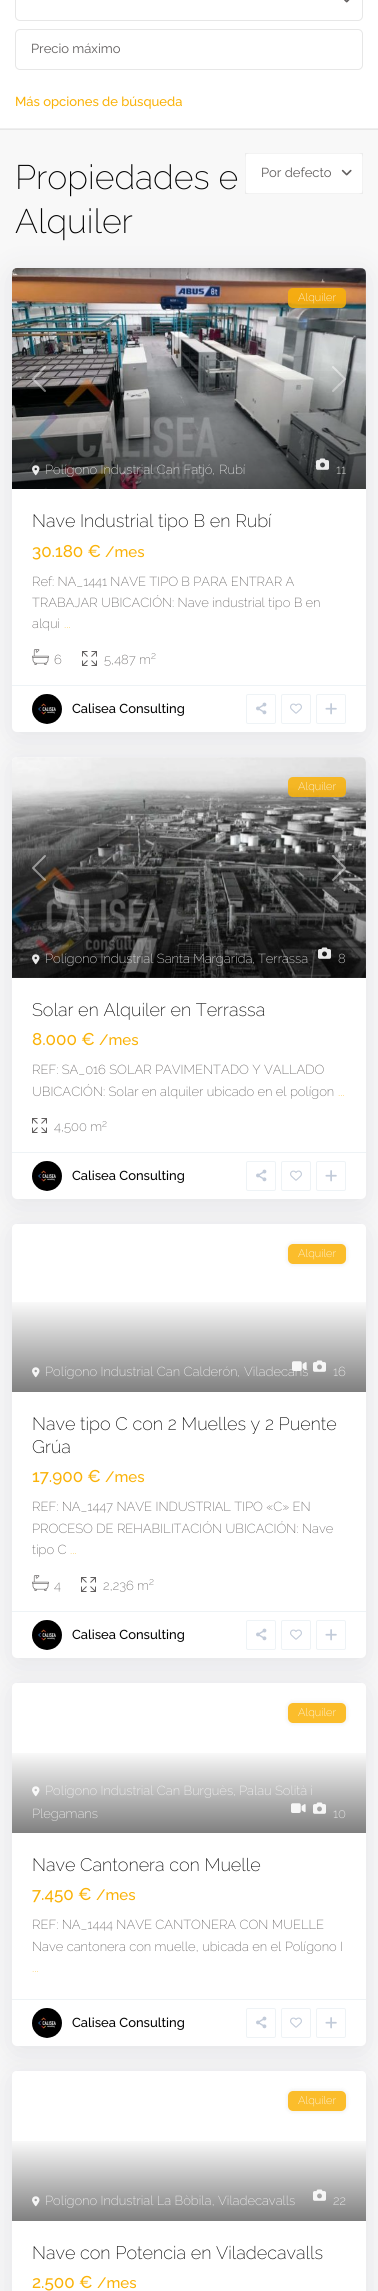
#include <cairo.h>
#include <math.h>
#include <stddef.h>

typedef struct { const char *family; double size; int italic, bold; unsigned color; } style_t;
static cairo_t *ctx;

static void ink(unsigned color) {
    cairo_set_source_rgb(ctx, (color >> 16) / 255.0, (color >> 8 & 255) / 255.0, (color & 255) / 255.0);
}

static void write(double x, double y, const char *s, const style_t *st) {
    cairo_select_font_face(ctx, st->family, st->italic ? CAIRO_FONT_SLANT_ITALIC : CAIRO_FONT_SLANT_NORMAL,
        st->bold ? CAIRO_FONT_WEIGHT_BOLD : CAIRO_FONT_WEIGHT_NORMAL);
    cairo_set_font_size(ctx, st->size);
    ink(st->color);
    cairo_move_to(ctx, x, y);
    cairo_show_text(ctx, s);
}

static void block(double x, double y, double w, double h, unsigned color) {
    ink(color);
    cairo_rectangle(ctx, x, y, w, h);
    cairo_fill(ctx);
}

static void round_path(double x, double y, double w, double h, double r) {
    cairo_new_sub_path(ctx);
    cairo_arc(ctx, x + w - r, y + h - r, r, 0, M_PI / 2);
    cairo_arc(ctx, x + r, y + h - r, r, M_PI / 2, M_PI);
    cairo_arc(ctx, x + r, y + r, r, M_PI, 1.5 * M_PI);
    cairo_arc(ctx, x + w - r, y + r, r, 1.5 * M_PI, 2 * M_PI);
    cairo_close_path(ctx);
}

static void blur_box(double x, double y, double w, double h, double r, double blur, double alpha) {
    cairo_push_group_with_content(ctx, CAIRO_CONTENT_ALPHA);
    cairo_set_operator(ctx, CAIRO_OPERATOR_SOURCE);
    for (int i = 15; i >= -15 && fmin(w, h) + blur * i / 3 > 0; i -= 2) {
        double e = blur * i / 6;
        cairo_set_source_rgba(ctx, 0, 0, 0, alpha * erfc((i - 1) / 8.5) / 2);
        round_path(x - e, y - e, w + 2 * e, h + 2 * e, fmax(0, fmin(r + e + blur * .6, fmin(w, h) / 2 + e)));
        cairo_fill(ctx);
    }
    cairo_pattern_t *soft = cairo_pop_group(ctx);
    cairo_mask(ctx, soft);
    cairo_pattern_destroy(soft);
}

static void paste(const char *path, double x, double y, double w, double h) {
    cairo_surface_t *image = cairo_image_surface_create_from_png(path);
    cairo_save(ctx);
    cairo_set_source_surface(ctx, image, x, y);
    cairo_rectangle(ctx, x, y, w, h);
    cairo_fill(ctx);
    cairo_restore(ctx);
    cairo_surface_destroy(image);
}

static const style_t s1 = {"Raleway", 13, 0, 0, 0x615e5e};
static const style_t s2 = {"Raleway Medium", 13, 0, 0, 0xfab207};
static const style_t s3 = {"Raleway ExtraLight", 34, 0, 0, 0x030303};
static const style_t s4 = {"Raleway ExtraLight", 11, 0, 0, 0xffffff};
static const style_t s5 = {"Raleway ExtraLight", 13, 0, 0, 0xebecec};
static const style_t s6 = {"Raleway ExtraLight", 18, 0, 0, 0x030303};
static const style_t s7 = {"Raleway Medium", 17, 0, 0, 0xfab207};
static const style_t s8 = {"Raleway Medium", 15, 0, 0, 0xfab207};
static const style_t s9 = {"Raleway ExtraLight", 13, 0, 0, 0x615e5e};
static const style_t s10 = {"Raleway ExtraLight", 13, 0, 0, 0xfab207};
static const style_t s11 = {"Raleway ExtraLight", 10, 0, 0, 0x615e5e};
static const style_t s12 = {"Raleway Medium", 13, 0, 0, 0x030303};
static const style_t s13 = {"Raleway ExtraLight", 13, 0, 0, 0xf5f5f5};

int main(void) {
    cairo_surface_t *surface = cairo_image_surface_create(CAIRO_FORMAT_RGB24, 378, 2291);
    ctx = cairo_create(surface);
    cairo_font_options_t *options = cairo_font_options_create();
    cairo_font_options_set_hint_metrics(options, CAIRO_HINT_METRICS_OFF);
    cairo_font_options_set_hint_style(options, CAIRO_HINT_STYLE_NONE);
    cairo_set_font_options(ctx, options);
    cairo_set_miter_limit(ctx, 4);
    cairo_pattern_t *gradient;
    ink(0xf8f8f8);
    cairo_paint(ctx);
    block(0, 129, 378, 1, 0xe7e7e7);
    block(0, 0, 378, 128, 0xffffff);
    block(0, 128, 378, 1, 0xefefef);
    round_path(15.5, -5.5, 347, 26, 4.5);
    ink(0xe7e7e7);
    cairo_set_line_width(ctx, 1);
    cairo_stroke(ctx);
    paste("pic1.png", 344, 0, 6, 3);
    round_path(15.5, 29.5, 347, 40, 4.5);
    cairo_stroke(ctx);
    write(31, 53, "Precio máximo", &s1);
    write(15, 106, "Más opciones de búsqueda", &s2);
    ink(0xffffff);
    round_path(245, 153, 118, 41, 5);
    cairo_fill(ctx);
    cairo_rectangle(ctx, 245.5, 153.5, 117, 40);
    cairo_set_source_rgba(ctx, 0, 0, 0, 0.05);
    cairo_stroke(ctx);
    write(261, 177, "Por defecto", &s1);
    paste("pic2.png", 341, 169, 11, 7);
    write(15, 189, "Propiedades e", &s3);
    write(15, 233, "Alquiler", &s3);
    ink(0x242a4c);
    blur_box(12, 273, 354, 464, 5, 15, 0.1);
    ink(0xffffff);
    round_path(12, 268, 354, 464, 5);
    cairo_fill(ctx);
    paste("pic3.png", 12, 268, 354, 221);
    paste("pic4.png", 32, 366, 14, 26);
    paste("pic5.png", 332, 366, 14, 26);
    cairo_set_source_rgba(ctx, 0.98, 0.698, 0.027, 0.85);
    round_path(288, 288, 58, 20, 5);
    cairo_fill(ctx);
    write(298, 301, "Alquiler", &s4);
    gradient = cairo_pattern_create_linear(189, 489, 189, 268);
    cairo_pattern_add_color_stop_rgba(gradient, 0, 0, 0, 0, 0.5);
    cairo_pattern_add_color_stop_rgba(gradient, 0.56, 0, 0, 0, 0);
    cairo_set_source(ctx, gradient);
    cairo_pattern_destroy(gradient);
    cairo_rectangle(ctx, 12, 371, 354, 118);
    cairo_fill(ctx);
    paste("pic6.png", 32, 465, 8, 11);
    write(45, 474, "Polígono Industrial Can Fatjó", &s5);
    write(212, 474, ",", &s5);
    write(219, 474, "Rubí", &s5);
    paste("pic7.png", 316, 458, 13, 12);
    write(336, 474, "11", &s5);
    write(32, 527, "Nave Industrial tipo B en Rubí", &s6);
    write(32, 557, "30.180 €", &s7);
    write(105, 557, "/mes", &s8);
    write(32, 586, "Ref: NA_1441 NAVE TIPO B PARA ENTRAR A", &s9);
    write(32, 607, "TRABAJAR UBICACIÓN: Nave industrial tipo B en", &s9);
    write(32, 628, "alqui", &s9);
    write(64, 628, "...", &s10);
    paste("pic8.png", 32, 649, 17, 16);
    write(54, 664, "6", &s9);
    paste("pic9.png", 82, 651, 15, 15);
    write(104, 664, "5,487 m", &s9);
    write(151, 659, "2", &s11);
    block(12, 685, 354, 1, 0xeef3f6);
    paste("pic10.png", 32, 694, 30, 30);
    write(72, 713, "Calisea Consulting", &s12);
    round_path(246.5, 694.5, 29, 29, 1.5);
    ink(0xeef3f6);
    cairo_stroke(ctx);
    paste("pic11.png", 256, 702, 11, 13);
    round_path(281.5, 694.5, 29, 29, 1.5);
    cairo_stroke(ctx);
    paste("pic12.png", 290, 703, 12, 11);
    round_path(316.5, 694.5, 29, 29, 1.5);
    cairo_stroke(ctx);
    paste("pic13.png", 325, 703, 12, 12);
    ink(0x242a4c);
    blur_box(12, 762, 354, 442, 5, 15, 0.1);
    ink(0xffffff);
    round_path(12, 757, 354, 442, 5);
    cairo_fill(ctx);
    paste("pic14.png", 12, 757, 354, 221);
    paste("pic15.png", 32, 855, 14, 26);
    paste("pic16.png", 332, 855, 14, 26);
    cairo_set_source_rgba(ctx, 0.98, 0.698, 0.027, 0.85);
    round_path(288, 777, 58, 20, 5);
    cairo_fill(ctx);
    write(298, 790, "Alquiler", &s4);
    gradient = cairo_pattern_create_linear(189, 978, 189, 757);
    cairo_pattern_add_color_stop_rgba(gradient, 0, 0, 0, 0, 0.5);
    cairo_pattern_add_color_stop_rgba(gradient, 0.56, 0, 0, 0, 0);
    cairo_set_source(ctx, gradient);
    cairo_pattern_destroy(gradient);
    cairo_rectangle(ctx, 12, 860, 354, 118);
    cairo_fill(ctx);
    paste("pic17.png", 32, 954, 8, 11);
    write(45, 963, "Polígono Industrial Santa Margarida", &s5);
    write(252, 963, ",", &s5);
    write(258, 963, "Terrassa", &s5);
    paste("pic18.png", 318, 947, 13, 12);
    write(338, 963, "8", &s5);
    write(32, 1016, "Solar en Alquiler en Terrassa", &s6);
    write(32, 1045, "8.000 €", &s7);
    write(99, 1045, "/mes", &s8);
    write(32, 1074, "REF: SA_016 SOLAR PAVIMENTADO Y VALLADO", &s9);
    write(32, 1096, "UBICACIÓN: Solar en alquiler ubicado en el polígon", &s9);
    write(338, 1096, "...", &s10);
    paste("pic9.png", 32, 1118, 15, 15);
    write(54, 1131, "4,500 m", &s9);
    write(102, 1127, "2", &s11);
    block(12, 1152, 354, 1, 0xeef3f6);
    paste("pic10.png", 32, 1161, 30, 30);
    write(72, 1180, "Calisea Consulting", &s12);
    round_path(246.5, 1161.5, 29, 29, 1.5);
    ink(0xeef3f6);
    cairo_stroke(ctx);
    paste("pic11.png", 256, 1169, 11, 13);
    round_path(281.5, 1161.5, 29, 29, 1.5);
    cairo_stroke(ctx);
    paste("pic12.png", 290, 1170, 12, 11);
    round_path(316.5, 1161.5, 29, 29, 1.5);
    cairo_stroke(ctx);
    paste("pic13.png", 325, 1170, 12, 12);
    ink(0x242a4c);
    blur_box(12, 1229, 354, 434, 5, 15, 0.1);
    ink(0xffffff);
    round_path(12, 1224, 354, 434, 5);
    cairo_fill(ctx);
    cairo_new_path(ctx);
    cairo_move_to(ctx, 17, 1224);
    cairo_line_to(ctx, 361, 1224);
    cairo_curve_to(ctx, 364, 1224, 366, 1226, 366, 1229);
    cairo_line_to(ctx, 366, 1392);
    cairo_line_to(ctx, 12, 1392);
    cairo_line_to(ctx, 12, 1229);
    cairo_curve_to(ctx, 12, 1226, 14, 1224, 17, 1224);
    cairo_close_path(ctx);
    cairo_fill(ctx);
    cairo_save(ctx);
    cairo_set_fill_rule(ctx, CAIRO_FILL_RULE_EVEN_ODD);
    cairo_new_path(ctx);
    cairo_move_to(ctx, 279, 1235);
    cairo_line_to(ctx, 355, 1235);
    cairo_line_to(ctx, 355, 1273);
    cairo_line_to(ctx, 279, 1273);
    cairo_close_path(ctx);
    cairo_move_to(ctx, 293, 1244);
    cairo_line_to(ctx, 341, 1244);
    cairo_curve_to(ctx, 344, 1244, 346, 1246, 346, 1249);
    cairo_line_to(ctx, 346, 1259);
    cairo_curve_to(ctx, 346, 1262, 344, 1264, 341, 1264);
    cairo_line_to(ctx, 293, 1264);
    cairo_curve_to(ctx, 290, 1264, 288, 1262, 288, 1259);
    cairo_line_to(ctx, 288, 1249);
    cairo_curve_to(ctx, 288, 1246, 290, 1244, 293, 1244);
    cairo_close_path(ctx);
    cairo_clip(ctx);
    ink(0x000000);
    blur_box(288, 1244, 58, 20, 5, 2.5, 0.1);
    cairo_restore(ctx);
    cairo_set_source_rgba(ctx, 0.98, 0.698, 0.027, 0.85);
    round_path(288, 1244, 58, 20, 5);
    cairo_fill(ctx);
    write(298, 1257, "Alquiler", &s4);
    gradient = cairo_pattern_create_linear(189, 1392, 189, 1224);
    cairo_pattern_add_color_stop_rgba(gradient, 0, 0, 0, 0, 0.5);
    cairo_pattern_add_color_stop_rgba(gradient, 0.56, 0, 0, 0, 0);
    cairo_set_source(ctx, gradient);
    cairo_pattern_destroy(gradient);
    cairo_rectangle(ctx, 12, 1302, 354, 90);
    cairo_fill(ctx);
    paste("pic19.png", 32, 1367, 8, 11);
    write(45, 1376, "Polígono Industrial Can Calderón", &s13);
    write(237, 1376, ",", &s13);
    paste("pic20.png", 292, 1361, 15, 10);
    write(244, 1376, "Viladecans", &s13);
    paste("pic21.png", 313, 1360, 13, 12);
    write(333, 1376, "16", &s13);
    write(32, 1430, "Nave tipo C con 2 Muelles y 2 Puente", &s6);
    write(32, 1453, "Grúa", &s6);
    write(32, 1482, "17.900 €", &s7);
    write(105, 1482, "/mes", &s8);
    write(32, 1511, "REF: NA_1447 NAVE INDUSTRIAL TIPO «C» EN", &s9);
    write(32, 1533, "PROCESO DE REHABILITACIÓN UBICACIÓN: Nave", &s9);
    write(32, 1554, "tipo C", &s9);
    write(70, 1554, "...", &s10);
    paste("pic8.png", 32, 1575, 17, 16);
    write(54, 1590, "4", &s9);
    paste("pic9.png", 81, 1577, 15, 15);
    write(103, 1590, "2,236 m", &s9);
    write(149, 1585, "2", &s11);
    block(12, 1611, 354, 1, 0xeef3f6);
    paste("pic22.png", 32, 1620, 30, 30);
    write(72, 1639, "Calisea Consulting", &s12);
    round_path(246.5, 1620.5, 29, 29, 1.5);
    ink(0xeef3f6);
    cairo_stroke(ctx);
    paste("pic11.png", 256, 1628, 11, 13);
    round_path(281.5, 1620.5, 29, 29, 1.5);
    cairo_stroke(ctx);
    paste("pic12.png", 290, 1629, 12, 11);
    round_path(316.5, 1620.5, 29, 29, 1.5);
    cairo_stroke(ctx);
    paste("pic13.png", 325, 1629, 12, 12);
    ink(0x242a4c);
    blur_box(12, 1688, 354, 363, 5, 15, 0.1);
    ink(0xffffff);
    round_path(12, 1683, 354, 363, 5);
    cairo_fill(ctx);
    cairo_new_path(ctx);
    cairo_move_to(ctx, 17, 1683);
    cairo_line_to(ctx, 361, 1683);
    cairo_curve_to(ctx, 364, 1683, 366, 1685, 366, 1688);
    cairo_line_to(ctx, 366, 1833);
    cairo_line_to(ctx, 12, 1833);
    cairo_line_to(ctx, 12, 1688);
    cairo_curve_to(ctx, 12, 1685, 14, 1683, 17, 1683);
    cairo_close_path(ctx);
    cairo_fill(ctx);
    cairo_save(ctx);
    cairo_set_fill_rule(ctx, CAIRO_FILL_RULE_EVEN_ODD);
    cairo_new_path(ctx);
    cairo_move_to(ctx, 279, 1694);
    cairo_line_to(ctx, 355, 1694);
    cairo_line_to(ctx, 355, 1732);
    cairo_line_to(ctx, 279, 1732);
    cairo_close_path(ctx);
    cairo_move_to(ctx, 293, 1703);
    cairo_line_to(ctx, 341, 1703);
    cairo_curve_to(ctx, 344, 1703, 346, 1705, 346, 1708);
    cairo_line_to(ctx, 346, 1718);
    cairo_curve_to(ctx, 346, 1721, 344, 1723, 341, 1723);
    cairo_line_to(ctx, 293, 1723);
    cairo_curve_to(ctx, 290, 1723, 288, 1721, 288, 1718);
    cairo_line_to(ctx, 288, 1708);
    cairo_curve_to(ctx, 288, 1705, 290, 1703, 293, 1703);
    cairo_close_path(ctx);
    cairo_clip(ctx);
    ink(0x000000);
    blur_box(288, 1703, 58, 20, 5, 2.5, 0.1);
    cairo_restore(ctx);
    cairo_set_source_rgba(ctx, 0.98, 0.698, 0.027, 0.85);
    round_path(288, 1703, 58, 20, 5);
    cairo_fill(ctx);
    write(298, 1716, "Alquiler", &s4);
    gradient = cairo_pattern_create_linear(189, 1833, 189, 1683);
    cairo_pattern_add_color_stop_rgba(gradient, 0, 0, 0, 0, 0.5);
    cairo_pattern_add_color_stop_rgba(gradient, 0.56, 0, 0, 0, 0);
    cairo_set_source(ctx, gradient);
    cairo_pattern_destroy(gradient);
    cairo_rectangle(ctx, 12, 1753, 354, 80);
    cairo_fill(ctx);
    paste("pic23.png", 32, 1786, 8, 11);
    write(45, 1795, "Polígono Industrial Can Burguès", &s13);
    write(233, 1795, ",", &s13);
    write(239, 1795, "Palau Solità i", &s13);
    write(32, 1818, "Plegamans", &s13);
    paste("pic24.png", 291, 1803, 15, 10);
    paste("pic25.png", 313, 1802, 13, 12);
    write(333, 1818, "10", &s13);
    write(32, 1871, "Nave Cantonera con Muelle", &s6);
    write(32, 1900, "7.450 €", &s7);
    write(96, 1900, "/mes", &s8);
    write(32, 1929, "REF: NA_1444 NAVE CANTONERA CON MUELLE", &s9);
    write(32, 1951, "Nave cantonera con muelle, ubicada en el Polígono I", &s9);
    write(32, 1972, "...", &s10);
    block(12, 1999, 354, 1, 0xeef3f6);
    paste("pic10.png", 32, 2008, 30, 30);
    write(72, 2027, "Calisea Consulting", &s12);
    round_path(246.5, 2008.5, 29, 29, 1.5);
    ink(0xeef3f6);
    cairo_stroke(ctx);
    paste("pic11.png", 256, 2016, 11, 13);
    round_path(281.5, 2008.5, 29, 29, 1.5);
    cairo_stroke(ctx);
    paste("pic12.png", 290, 2017, 12, 11);
    round_path(316.5, 2008.5, 29, 29, 1.5);
    cairo_stroke(ctx);
    paste("pic13.png", 325, 2017, 12, 12);
    ink(0x242a4c);
    blur_box(12, 2076, 354, 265, 5, 15, 0.1);
    ink(0xffffff);
    round_path(12, 2071, 354, 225, 5);
    cairo_fill(ctx);
    cairo_new_path(ctx);
    cairo_move_to(ctx, 17, 2071);
    cairo_line_to(ctx, 361, 2071);
    cairo_curve_to(ctx, 364, 2071, 366, 2073, 366, 2076);
    cairo_line_to(ctx, 366, 2221);
    cairo_line_to(ctx, 12, 2221);
    cairo_line_to(ctx, 12, 2076);
    cairo_curve_to(ctx, 12, 2073, 14, 2071, 17, 2071);
    cairo_close_path(ctx);
    cairo_fill(ctx);
    cairo_save(ctx);
    cairo_set_fill_rule(ctx, CAIRO_FILL_RULE_EVEN_ODD);
    cairo_new_path(ctx);
    cairo_move_to(ctx, 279, 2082);
    cairo_line_to(ctx, 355, 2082);
    cairo_line_to(ctx, 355, 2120);
    cairo_line_to(ctx, 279, 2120);
    cairo_close_path(ctx);
    cairo_move_to(ctx, 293, 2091);
    cairo_line_to(ctx, 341, 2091);
    cairo_curve_to(ctx, 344, 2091, 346, 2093, 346, 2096);
    cairo_line_to(ctx, 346, 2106);
    cairo_curve_to(ctx, 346, 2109, 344, 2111, 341, 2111);
    cairo_line_to(ctx, 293, 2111);
    cairo_curve_to(ctx, 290, 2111, 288, 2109, 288, 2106);
    cairo_line_to(ctx, 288, 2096);
    cairo_curve_to(ctx, 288, 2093, 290, 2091, 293, 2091);
    cairo_close_path(ctx);
    cairo_clip(ctx);
    ink(0x000000);
    blur_box(288, 2091, 58, 20, 5, 2.5, 0.1);
    cairo_restore(ctx);
    cairo_set_source_rgba(ctx, 0.98, 0.698, 0.027, 0.85);
    round_path(288, 2091, 58, 20, 5);
    cairo_fill(ctx);
    write(298, 2104, "Alquiler", &s4);
    gradient = cairo_pattern_create_linear(189, 2221, 189, 2071);
    cairo_pattern_add_color_stop_rgba(gradient, 0, 0, 0, 0, 0.5);
    cairo_pattern_add_color_stop_rgba(gradient, 0.56, 0, 0, 0, 0);
    cairo_set_source(ctx, gradient);
    cairo_pattern_destroy(gradient);
    cairo_rectangle(ctx, 12, 2141, 354, 80);
    cairo_fill(ctx);
    paste("pic26.png", 32, 2196, 8, 11);
    write(45, 2205, "Polígono Industrial La Bòbila, Viladecavalls", &s13);
    paste("pic27.png", 313, 2189, 13, 12);
    write(333, 2205, "22", &s13);
    write(32, 2259, "Nave con Potencia en Viladecavalls", &s6);
    write(32, 2288, "2.500 €", &s7);
    write(97, 2288, "/mes", &s8);
    cairo_surface_write_to_png(surface, "screenshot.png");
    cairo_font_options_destroy(options);
    cairo_destroy(ctx);
    cairo_surface_destroy(surface);
    return 0;
}
